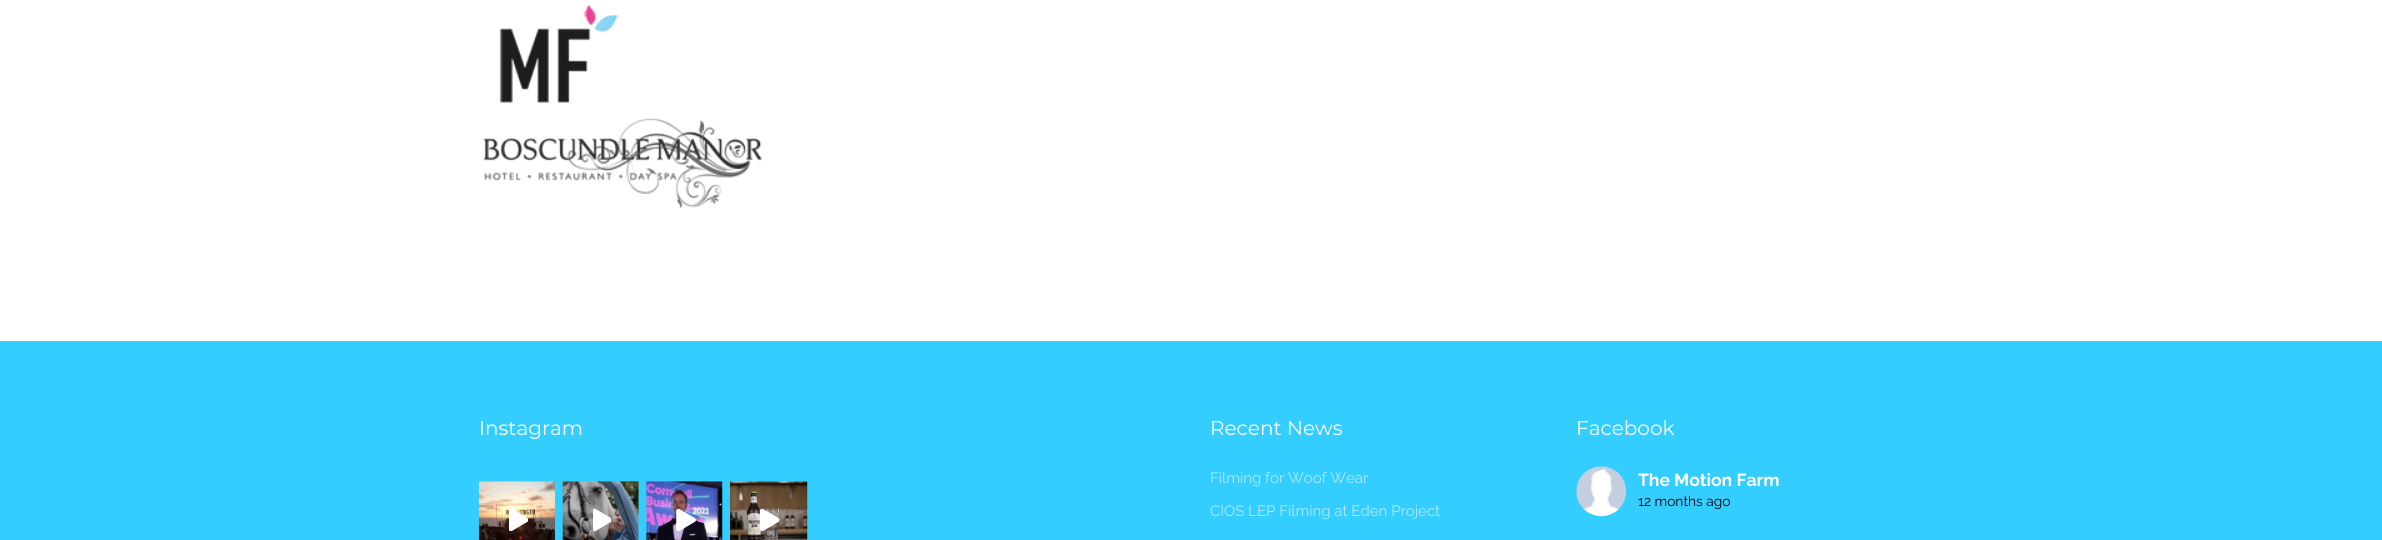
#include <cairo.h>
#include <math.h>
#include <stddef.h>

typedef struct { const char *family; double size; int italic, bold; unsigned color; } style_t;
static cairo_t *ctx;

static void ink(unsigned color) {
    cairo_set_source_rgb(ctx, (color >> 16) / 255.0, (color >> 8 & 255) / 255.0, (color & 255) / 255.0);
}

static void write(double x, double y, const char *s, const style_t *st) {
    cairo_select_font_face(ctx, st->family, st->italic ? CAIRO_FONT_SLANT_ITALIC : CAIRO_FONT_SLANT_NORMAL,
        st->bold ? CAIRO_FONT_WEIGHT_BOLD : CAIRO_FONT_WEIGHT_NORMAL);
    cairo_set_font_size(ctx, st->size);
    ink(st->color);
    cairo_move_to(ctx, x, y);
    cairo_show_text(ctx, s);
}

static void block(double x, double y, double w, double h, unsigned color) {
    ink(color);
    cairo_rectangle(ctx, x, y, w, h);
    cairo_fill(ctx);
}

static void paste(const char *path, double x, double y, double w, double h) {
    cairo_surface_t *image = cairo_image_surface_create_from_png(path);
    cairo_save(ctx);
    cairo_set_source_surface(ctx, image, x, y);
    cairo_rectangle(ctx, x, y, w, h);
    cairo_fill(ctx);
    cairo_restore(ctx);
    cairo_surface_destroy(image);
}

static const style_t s1 = {"Montserrat", 20, 0, 0, 0xffffff};
static const style_t s2 = {"Raleway", 15, 0, 0, 0xaeebff};
static const style_t s3 = {"Raleway", 17.5, 0, 1, 0xffffff};
static const style_t s4 = {"Raleway", 13.75, 0, 0, 0x000000};

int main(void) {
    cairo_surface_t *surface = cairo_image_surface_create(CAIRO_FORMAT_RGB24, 2382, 540);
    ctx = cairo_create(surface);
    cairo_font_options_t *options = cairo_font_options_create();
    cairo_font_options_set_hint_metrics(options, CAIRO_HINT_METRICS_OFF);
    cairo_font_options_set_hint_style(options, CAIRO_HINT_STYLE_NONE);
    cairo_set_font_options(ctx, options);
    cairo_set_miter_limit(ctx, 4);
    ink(0xffffff);
    cairo_paint(ctx);
    paste("pic1.png", 499, 5, 120, 98);
    paste("pic2.png", 483, 118, 279, 90);
    block(0, 341, 2382, 199, 0x34cdff);
    write(479, 435, "Instagram", &s1);
    paste("pic3.png", 478, 481, 77, 59);
    paste("pic4.png", 509, 509, 19, 22);
    paste("pic5.png", 562, 481, 77, 59);
    paste("pic6.png", 593, 509, 18, 22);
    paste("pic7.png", 646, 481, 77, 59);
    paste("pic8.png", 676, 509, 20, 22);
    paste("pic9.png", 730, 481, 78, 59);
    paste("pic10.png", 760, 509, 20, 22);
    write(1210, 435, "Recent News", &s1);
    write(1210, 483, "Filming for Woof Wear", &s2);
    write(1210, 516, "CIOS LEP Filming at Eden Project", &s2);
    write(1576, 435, "Facebook", &s1);
    paste("pic11.png", 1576, 466, 51, 51);
    write(1638, 486, "The Motion Farm", &s3);
    write(1638, 506, "12 months ago", &s4);
    cairo_surface_write_to_png(surface, "screenshot.png");
    cairo_font_options_destroy(options);
    cairo_destroy(ctx);
    cairo_surface_destroy(surface);
    return 0;
}
